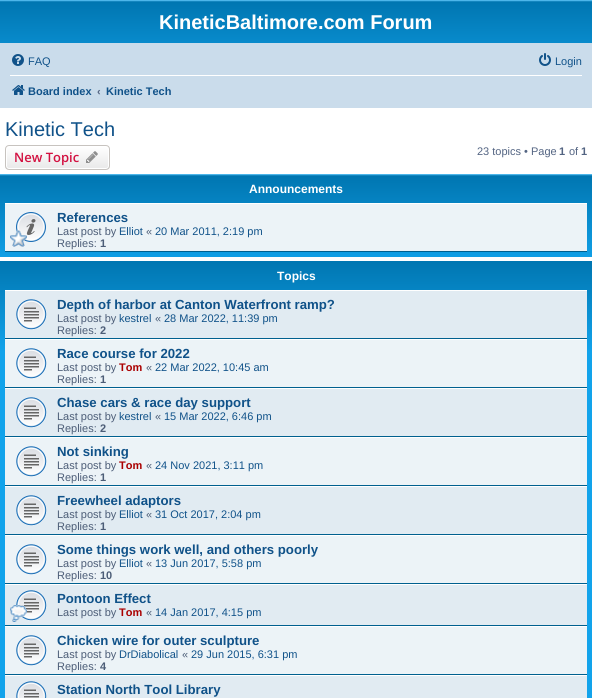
#include <cairo.h>
#include <math.h>
#include <stddef.h>

typedef struct { const char *family; double size; int italic, bold; unsigned color; } style_t;
static cairo_t *ctx;

static void ink(unsigned color) {
    cairo_set_source_rgb(ctx, (color >> 16) / 255.0, (color >> 8 & 255) / 255.0, (color & 255) / 255.0);
}

static void write(double x, double y, const char *s, const style_t *st) {
    cairo_select_font_face(ctx, st->family, st->italic ? CAIRO_FONT_SLANT_ITALIC : CAIRO_FONT_SLANT_NORMAL,
        st->bold ? CAIRO_FONT_WEIGHT_BOLD : CAIRO_FONT_WEIGHT_NORMAL);
    cairo_set_font_size(ctx, st->size);
    ink(st->color);
    cairo_move_to(ctx, x, y);
    cairo_show_text(ctx, s);
}

static void block(double x, double y, double w, double h, unsigned color) {
    ink(color);
    cairo_rectangle(ctx, x, y, w, h);
    cairo_fill(ctx);
}

static void round_path(double x, double y, double w, double h, double r) {
    cairo_new_sub_path(ctx);
    cairo_arc(ctx, x + w - r, y + h - r, r, 0, M_PI / 2);
    cairo_arc(ctx, x + r, y + h - r, r, M_PI / 2, M_PI);
    cairo_arc(ctx, x + r, y + r, r, M_PI, 1.5 * M_PI);
    cairo_arc(ctx, x + w - r, y + r, r, 1.5 * M_PI, 2 * M_PI);
    cairo_close_path(ctx);
}

static void paste(const char *path, double x, double y, double w, double h) {
    cairo_surface_t *image = cairo_image_surface_create_from_png(path);
    cairo_save(ctx);
    cairo_set_source_surface(ctx, image, x, y);
    cairo_rectangle(ctx, x, y, w, h);
    cairo_fill(ctx);
    cairo_restore(ctx);
    cairo_surface_destroy(image);
}

static const style_t s1 = {"Liberation Sans", 20, 0, 1, 0xffffff};
static const style_t s2 = {"Liberation Sans", 11, 0, 0, 0x105289};
static const style_t s3 = {"Liberation Sans", 11, 0, 1, 0x105289};
static const style_t s4 = {"Liberation Sans", 11, 0, 1, 0x536482};
static const style_t s5 = {"Liberation Sans", 20, 0, 0, 0x105289};
static const style_t s6 = {"Open Sans SemiBold", 13, 0, 0, 0xd31141};
static const style_t s7 = {"Liberation Sans", 11, 0, 0, 0x536482};
static const style_t s8 = {"Liberation Sans", 12, 0, 1, 0xffffff};
static const style_t s9 = {"Liberation Sans", 13.2, 0, 1, 0x105289};
static const style_t s10 = {"Liberation Sans", 11, 0, 0, 0x4c5d77};
static const style_t s11 = {"Liberation Sans", 11, 0, 1, 0x4c5d77};
static const style_t s12 = {"Liberation Sans", 11, 0, 1, 0xaa0000};

int main(void) {
    cairo_surface_t *surface = cairo_image_surface_create(CAIRO_FORMAT_RGB24, 592, 698);
    ctx = cairo_create(surface);
    cairo_font_options_t *options = cairo_font_options_create();
    cairo_font_options_set_hint_metrics(options, CAIRO_HINT_METRICS_OFF);
    cairo_font_options_set_hint_style(options, CAIRO_HINT_STYLE_NONE);
    cairo_set_font_options(ctx, options);
    cairo_set_miter_limit(ctx, 4);
    cairo_pattern_t *gradient;
    ink(0xffffff);
    cairo_paint(ctx);
    gradient = cairo_pattern_create_linear(296, 0, 296, 92);
    cairo_pattern_add_color_stop_rgba(gradient, 0, 0.416, 0.808, 1, 1);
    cairo_pattern_add_color_stop_rgba(gradient, 0.02, 0, 0.463, 0.694, 1);
    cairo_pattern_add_color_stop_rgba(gradient, 1, 0.071, 0.639, 0.922, 1);
    cairo_set_source(ctx, gradient);
    cairo_pattern_destroy(gradient);
    cairo_rectangle(ctx, 0, 0, 592, 43);
    cairo_fill(ctx);
    write(159, 29, "KineticBaltimore.com Forum", &s1);
    block(0, 43, 592, 65, 0xcadceb);
    paste("pic1.png", 12, 54, 12, 12);
    write(28, 65, "FAQ", &s2);
    paste("pic2.png", 539, 53, 12, 13);
    write(555, 65, "Login", &s2);
    block(10, 75, 572, 1, 0xffffff);
    paste("pic3.png", 12, 85, 13, 10);
    write(28, 95, "Board index", &s3);
    write(97, 95, "‹", &s4);
    write(106, 95, "Kinetic Tech", &s3);
    write(5, 136, "Kinetic Tech", &s5);
    cairo_save(ctx);
    round_path(5, 145, 105, 25, 4);
    cairo_clip(ctx);
    gradient = cairo_pattern_create_linear(58, 146, 58, 169);
    cairo_pattern_add_color_stop_rgba(gradient, 0, 1, 1, 1, 1);
    cairo_pattern_add_color_stop_rgba(gradient, 1, 0.914, 0.914, 0.914, 1);
    cairo_set_source(ctx, gradient);
    cairo_pattern_destroy(gradient);
    cairo_rectangle(ctx, 5, 146, 105, 23);
    cairo_fill(ctx);
    cairo_restore(ctx);
    round_path(6.5, 146.5, 102, 22, 2.5);
    ink(0xffffff);
    cairo_set_line_width(ctx, 1);
    cairo_stroke(ctx);
    round_path(5.5, 145.5, 104, 24, 3.5);
    ink(0xc7c3bf);
    cairo_stroke(ctx);
    write(14, 162, "New Topic", &s6);
    paste("pic4.png", 86, 151, 12, 12);
    write(477, 155, "23 topics • Page", &s7);
    write(559, 155, "1", &s4);
    write(569, 155, "of", &s7);
    write(581, 155, "1", &s4);
    gradient = cairo_pattern_create_linear(296, 174, 296, 266);
    cairo_pattern_add_color_stop_rgba(gradient, 0, 0.416, 0.808, 1, 1);
    cairo_pattern_add_color_stop_rgba(gradient, 0.02, 0, 0.463, 0.694, 1);
    cairo_pattern_add_color_stop_rgba(gradient, 1, 0.071, 0.639, 0.922, 1);
    cairo_set_source(ctx, gradient);
    cairo_pattern_destroy(gradient);
    cairo_rectangle(ctx, 0, 174, 592, 83);
    cairo_fill(ctx);
    write(249, 193, "Announcements", &s8);
    block(5, 204, 582, 47, 0xecf3f7);
    block(5, 203, 582, 1, 0xffffff);
    block(5, 251, 582, 1, 0x00608f);
    paste("pic5.png", 16, 212, 30, 30);
    paste("pic6.png", 10, 230, 17, 17);
    write(57, 222, "References", &s9);
    write(57, 235, "Last post by", &s10);
    write(119, 235, "Elliot", &s2);
    write(146, 235, "«", &s10);
    write(155, 235, "20 Mar 2011, 2:19 pm", &s2);
    write(57, 247, "Replies:", &s10);
    write(100, 247, "1", &s11);
    gradient = cairo_pattern_create_linear(296, 261, 296, 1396);
    cairo_pattern_add_color_stop_rgba(gradient, 0, 0.416, 0.808, 1, 1);
    cairo_pattern_add_color_stop_rgba(gradient, 0, 0, 0.463, 0.694, 1);
    cairo_pattern_add_color_stop_rgba(gradient, 0.08, 0.071, 0.639, 0.922, 1);
    cairo_pattern_add_color_stop_rgba(gradient, 1, 0.071, 0.639, 0.922, 1);
    cairo_set_source(ctx, gradient);
    cairo_pattern_destroy(gradient);
    cairo_rectangle(ctx, 0, 261, 592, 437);
    cairo_fill(ctx);
    write(277, 280, "Topics", &s8);
    block(5, 291, 582, 47, 0xe1ebf2);
    block(5, 290, 582, 1, 0xffffff);
    block(5, 338, 582, 1, 0x00608f);
    paste("pic7.png", 16, 299, 31, 31);
    write(57, 309, "Depth of harbor at Canton Waterfront ramp?", &s9);
    write(57, 322, "Last post by", &s10);
    write(119, 322, "kestrel", &s2);
    write(155, 322, "«", &s10);
    write(164, 322, "28 Mar 2022, 11:39 pm", &s2);
    write(57, 334, "Replies:", &s10);
    write(100, 334, "2", &s11);
    block(5, 340, 582, 47, 0xecf3f7);
    block(5, 339, 582, 1, 0xffffff);
    block(5, 387, 582, 1, 0x00608f);
    paste("pic8.png", 16, 348, 31, 31);
    write(57, 358, "Race course for 2022", &s9);
    write(57, 371, "Last post by", &s10);
    write(119, 371, "Tom", &s12);
    write(146, 371, "«", &s10);
    write(155, 371, "22 Mar 2022, 10:45 am", &s2);
    write(57, 383, "Replies:", &s10);
    write(100, 383, "1", &s11);
    block(5, 389, 582, 47, 0xe1ebf2);
    block(5, 388, 582, 1, 0xffffff);
    block(5, 436, 582, 1, 0x00608f);
    paste("pic7.png", 16, 397, 31, 31);
    write(57, 407, "Chase cars & race day support", &s9);
    write(57, 420, "Last post by", &s10);
    write(119, 420, "kestrel", &s2);
    write(155, 420, "«", &s10);
    write(164, 420, "15 Mar 2022, 6:46 pm", &s2);
    write(57, 432, "Replies:", &s10);
    write(100, 432, "2", &s11);
    block(5, 438, 582, 47, 0xecf3f7);
    block(5, 437, 582, 1, 0xffffff);
    block(5, 485, 582, 1, 0x00608f);
    paste("pic8.png", 16, 446, 31, 31);
    write(57, 456, "Not sinking", &s9);
    write(57, 469, "Last post by", &s10);
    write(119, 469, "Tom", &s12);
    write(146, 469, "«", &s10);
    write(155, 469, "24 Nov 2021, 3:11 pm", &s2);
    write(57, 481, "Replies:", &s10);
    write(100, 481, "1", &s11);
    block(5, 487, 582, 47, 0xe1ebf2);
    block(5, 486, 582, 1, 0xffffff);
    block(5, 534, 582, 1, 0x00608f);
    paste("pic7.png", 16, 495, 31, 31);
    write(57, 505, "Freewheel adaptors", &s9);
    write(57, 518, "Last post by", &s10);
    write(119, 518, "Elliot", &s2);
    write(146, 518, "«", &s10);
    write(155, 518, "31 Oct 2017, 2:04 pm", &s2);
    write(57, 530, "Replies:", &s10);
    write(100, 530, "1", &s11);
    block(5, 536, 582, 47, 0xecf3f7);
    block(5, 535, 582, 1, 0xffffff);
    block(5, 583, 582, 1, 0x00608f);
    paste("pic8.png", 16, 544, 31, 31);
    write(57, 554, "Some things work well, and others poorly", &s9);
    write(57, 567, "Last post by", &s10);
    write(119, 567, "Elliot", &s2);
    write(146, 567, "«", &s10);
    write(155, 567, "13 Jun 2017, 5:58 pm", &s2);
    write(57, 579, "Replies:", &s10);
    write(100, 579, "10", &s11);
    block(5, 585, 582, 40, 0xe1ebf2);
    block(5, 584, 582, 1, 0xffffff);
    block(5, 625, 582, 1, 0x00608f);
    paste("pic7.png", 16, 590, 31, 31);
    paste("pic9.png", 10, 605, 17, 17);
    write(57, 603, "Pontoon Effect", &s9);
    write(57, 616, "Last post by", &s10);
    write(119, 616, "Tom", &s12);
    write(146, 616, "«", &s10);
    write(155, 616, "14 Jan 2017, 4:15 pm", &s2);
    block(5, 627, 582, 47, 0xecf3f7);
    block(5, 626, 582, 1, 0xffffff);
    block(5, 674, 582, 1, 0x00608f);
    paste("pic8.png", 16, 635, 31, 31);
    write(57, 645, "Chicken wire for outer sculpture", &s9);
    write(57, 658, "Last post by", &s10);
    write(119, 658, "DrDiabolical", &s2);
    write(182, 658, "«", &s10);
    write(191, 658, "29 Jun 2015, 6:31 pm", &s2);
    write(57, 670, "Replies:", &s10);
    write(100, 670, "4", &s11);
    block(5, 676, 582, 22, 0xe1ebf2);
    block(5, 675, 582, 1, 0xffffff);
    paste("pic10.png", 16, 681, 31, 17);
    write(57, 694, "Station North Tool Library", &s9);
    cairo_surface_write_to_png(surface, "screenshot.png");
    cairo_font_options_destroy(options);
    cairo_destroy(ctx);
    cairo_surface_destroy(surface);
    return 0;
}
